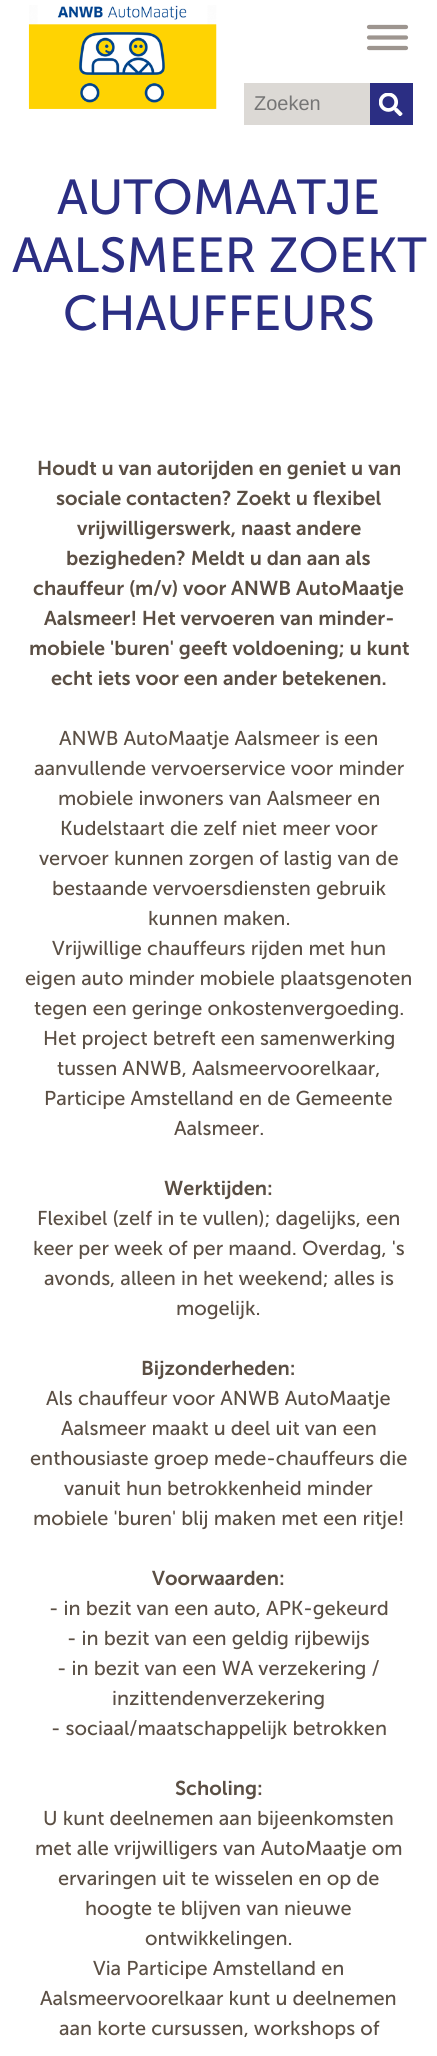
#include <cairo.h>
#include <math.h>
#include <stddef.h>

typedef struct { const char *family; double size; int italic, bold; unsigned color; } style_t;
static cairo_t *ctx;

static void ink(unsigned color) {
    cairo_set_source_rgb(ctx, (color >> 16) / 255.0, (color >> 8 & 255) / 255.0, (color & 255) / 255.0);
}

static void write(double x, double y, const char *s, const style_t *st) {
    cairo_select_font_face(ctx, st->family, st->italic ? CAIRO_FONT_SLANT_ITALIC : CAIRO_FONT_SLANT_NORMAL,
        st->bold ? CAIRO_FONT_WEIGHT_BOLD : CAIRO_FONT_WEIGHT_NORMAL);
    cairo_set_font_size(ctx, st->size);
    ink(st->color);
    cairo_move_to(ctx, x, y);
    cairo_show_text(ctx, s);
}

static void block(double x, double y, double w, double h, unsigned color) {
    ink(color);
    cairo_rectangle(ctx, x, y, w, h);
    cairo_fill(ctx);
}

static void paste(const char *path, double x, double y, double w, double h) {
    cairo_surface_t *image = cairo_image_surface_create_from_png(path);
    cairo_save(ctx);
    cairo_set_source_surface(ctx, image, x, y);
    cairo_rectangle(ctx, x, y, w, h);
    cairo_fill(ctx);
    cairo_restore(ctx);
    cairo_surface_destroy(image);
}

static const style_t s1 = {"Liberation Sans", 20, 0, 0, 0x757575};
static const style_t s2 = {"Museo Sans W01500", 49, 0, 0, 0x2b2e83};
static const style_t s3 = {"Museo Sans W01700 SemiBold", 20, 0, 0, 0x5b4f44};
static const style_t s4 = {"Museo Sans W01500", 20, 0, 0, 0x5b4f44};

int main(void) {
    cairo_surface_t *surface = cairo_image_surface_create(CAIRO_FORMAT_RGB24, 437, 2056);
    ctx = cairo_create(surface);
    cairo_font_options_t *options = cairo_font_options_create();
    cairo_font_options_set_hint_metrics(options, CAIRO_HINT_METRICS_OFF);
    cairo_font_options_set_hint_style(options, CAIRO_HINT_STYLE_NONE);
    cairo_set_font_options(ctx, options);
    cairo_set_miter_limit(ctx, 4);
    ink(0xffffff);
    cairo_paint(ctx);
    paste("pic1.png", 28, 5, 189, 104);
    cairo_new_path(ctx);
    cairo_move_to(ctx, 369, 48);
    cairo_line_to(ctx, 406, 48);
    cairo_move_to(ctx, 369, 37.5);
    cairo_line_to(ctx, 406, 37.5);
    cairo_move_to(ctx, 369, 27);
    cairo_line_to(ctx, 406, 27);
    ink(0x9d958f);
    cairo_set_line_width(ctx, 4.2);
    cairo_set_line_cap(ctx, CAIRO_LINE_CAP_ROUND);
    cairo_set_line_join(ctx, CAIRO_LINE_JOIN_ROUND);
    cairo_stroke(ctx);
    block(244, 83, 126, 42, 0xdcd9d5);
    write(254, 110, "Zoeken", &s1);
    block(370, 83, 43, 42, 0x2b2e83);
    paste("pic2.png", 379, 93, 24, 23);
    write(57, 214, "AUTOMAATJE", &s2);
    write(12, 272, "AALSMEER ZOEKT", &s2);
    write(63, 330, "CHAUFFEURS", &s2);
    write(37, 475, "Houdt u van autorijden en geniet u van", &s3);
    write(56, 505, "sociale contacten? Zoekt u flexibel", &s3);
    write(77, 535, "vrijwilligerswerk, naast andere", &s3);
    write(66, 565, "bezigheden? Meldt u dan aan als", &s3);
    write(33, 595, "chauffeur (m/v) voor ANWB AutoMaatje", &s3);
    write(44, 625, "Aalsmeer! Het vervoeren van minder-", &s3);
    write(29, 655, "mobiele 'buren' geeft voldoening; u kunt", &s3);
    write(51, 685, "echt iets voor een ander betekenen.", &s3);
    write(59, 745, "ANWB AutoMaatje Aalsmeer is een", &s4);
    write(34, 775, "aanvullende vervoerservice voor minder", &s4);
    write(58, 805, "mobiele inwoners van Aalsmeer en", &s4);
    write(60, 835, "Kudelstaart die zelf niet meer voor", &s4);
    write(39, 865, "vervoer kunnen zorgen of lastig van de", &s4);
    write(52, 895, "bestaande vervoersdiensten gebruik", &s4);
    write(148, 925, "kunnen maken.", &s4);
    write(52, 955, "Vrijwillige chauffeurs rijden met hun", &s4);
    write(25, 985, "eigen auto minder mobiele plaatsgenoten", &s4);
    write(34, 1015, "tegen een geringe onkostenvergoeding.", &s4);
    write(43, 1045, "Het project betreft een samenwerking", &s4);
    write(57, 1075, "tussen ANWB, Aalsmeervoorelkaar,", &s4);
    write(44, 1105, "Participe Amstelland en de Gemeente", &s4);
    write(174, 1135, "Aalsmeer.", &s4);
    write(164, 1195, "Werktijden:", &s3);
    write(37, 1225, "Flexibel (zelf in te vullen); dagelijks, een", &s4);
    write(33, 1255, "keer per week of per maand. Overdag, 's", &s4);
    write(44, 1285, "avonds, alleen in het weekend; alles is", &s4);
    write(176, 1315, "mogelijk.", &s4);
    write(141, 1375, "Bijzonderheden:", &s3);
    write(46, 1405, "Als chauffeur voor ANWB AutoMaatje", &s4);
    write(61, 1435, "Aalsmeer maakt u deel uit van een", &s4);
    write(30, 1465, "enthousiaste groep mede-chauffeurs die", &s4);
    write(64, 1495, "vanuit hun betrokkenheid minder", &s4);
    write(33, 1525, "mobiele 'buren' blij maken met een ritje!", &s4);
    write(152, 1585, "Voorwaarden:", &s3);
    write(49, 1615, "- in bezit van een auto, APK-gekeurd", &s4);
    write(67, 1645, "- in bezit van een geldig rijbewijs", &s4);
    write(57, 1675, "- in bezit van een WA verzekering /", &s4);
    write(112, 1705, "inzittendenverzekering", &s4);
    write(51, 1735, "- sociaal/maatschappelijk betrokken", &s4);
    write(175, 1795, "Scholing:", &s3);
    write(43, 1825, "U kunt deelnemen aan bijeenkomsten", &s4);
    write(35, 1855, "met alle vrijwilligers van AutoMaatje om", &s4);
    write(58, 1885, "ervaringen uit te wisselen en op de", &s4);
    write(85, 1915, "hoogte te blijven van nieuwe", &s4);
    write(145, 1945, "ontwikkelingen.", &s4);
    write(93, 1975, "Via Participe Amstelland en", &s4);
    write(40, 2005, "Aalsmeervoorelkaar kunt u deelnemen", &s4);
    write(59, 2035, "aan korte cursussen, workshops of", &s4);
    cairo_surface_write_to_png(surface, "screenshot.png");
    cairo_font_options_destroy(options);
    cairo_destroy(ctx);
    cairo_surface_destroy(surface);
    return 0;
}
